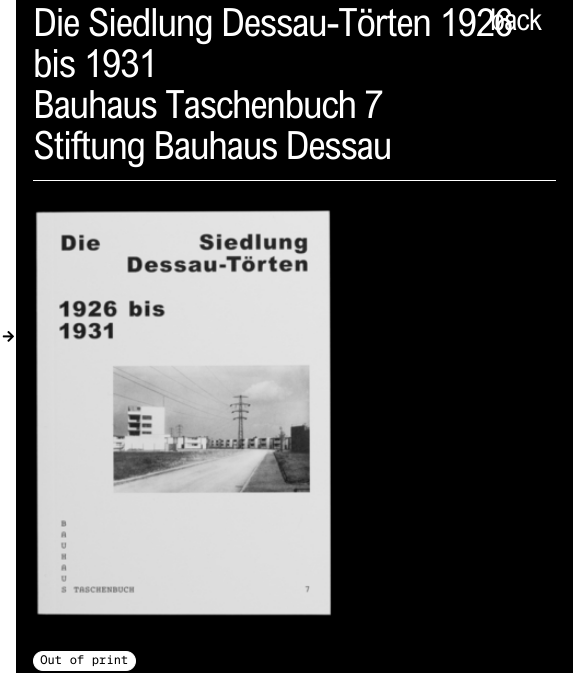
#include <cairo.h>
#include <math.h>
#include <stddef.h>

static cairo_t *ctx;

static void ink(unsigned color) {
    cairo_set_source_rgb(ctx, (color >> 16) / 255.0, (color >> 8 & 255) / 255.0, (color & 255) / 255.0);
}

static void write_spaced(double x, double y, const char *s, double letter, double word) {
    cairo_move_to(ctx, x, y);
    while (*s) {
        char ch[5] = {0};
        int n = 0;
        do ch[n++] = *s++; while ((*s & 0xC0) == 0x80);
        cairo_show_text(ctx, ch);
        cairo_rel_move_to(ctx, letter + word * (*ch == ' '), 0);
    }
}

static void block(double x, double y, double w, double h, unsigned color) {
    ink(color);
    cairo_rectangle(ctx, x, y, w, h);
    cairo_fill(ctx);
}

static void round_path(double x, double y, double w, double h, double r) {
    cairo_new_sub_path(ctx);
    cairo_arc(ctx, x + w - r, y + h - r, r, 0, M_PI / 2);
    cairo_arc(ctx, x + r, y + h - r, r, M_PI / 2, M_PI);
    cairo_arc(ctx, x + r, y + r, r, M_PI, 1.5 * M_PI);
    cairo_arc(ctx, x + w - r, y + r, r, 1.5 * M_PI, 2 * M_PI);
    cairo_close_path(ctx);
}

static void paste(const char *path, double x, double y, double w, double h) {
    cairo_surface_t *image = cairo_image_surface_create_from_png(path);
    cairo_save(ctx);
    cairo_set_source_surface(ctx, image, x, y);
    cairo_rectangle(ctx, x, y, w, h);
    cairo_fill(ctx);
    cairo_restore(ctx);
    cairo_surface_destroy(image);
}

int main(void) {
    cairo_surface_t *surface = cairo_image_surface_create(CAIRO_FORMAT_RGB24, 573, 673);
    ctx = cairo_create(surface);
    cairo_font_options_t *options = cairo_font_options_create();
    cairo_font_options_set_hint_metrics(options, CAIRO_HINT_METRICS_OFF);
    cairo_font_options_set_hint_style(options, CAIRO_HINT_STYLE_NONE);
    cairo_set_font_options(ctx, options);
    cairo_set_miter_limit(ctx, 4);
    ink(0xffffff);
    cairo_paint(ctx);
    block(16, 0, 557, 673, 0x000000);
    block(33, 180, 523, 1, 0xffffff);
    cairo_select_font_face(ctx, "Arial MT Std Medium", CAIRO_FONT_SLANT_NORMAL, CAIRO_FONT_WEIGHT_NORMAL);
    cairo_set_font_size(ctx, 39);
    write_spaced(33, 36, "Die Siedlung Dessau-Törten 1926", -1.2, 0);
    write_spaced(33, 77, "bis 1931", -1.2, 0);
    write_spaced(33, 118, "Bauhaus Taschenbuch 7", -1.2, 0);
    write_spaced(33, 159, "Stiftung Bauhaus Dessau", -1.2, 0);
    paste("pic1.png", 35, 210, 297, 406);
    round_path(33.5, 651.5, 102, 19, 9.5);
    cairo_fill_preserve(ctx);
    cairo_set_line_width(ctx, 1);
    cairo_stroke(ctx);
    cairo_select_font_face(ctx, "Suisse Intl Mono", CAIRO_FONT_SLANT_NORMAL, CAIRO_FONT_WEIGHT_NORMAL);
    cairo_set_font_size(ctx, 12);
    ink(0x000000);
    write_spaced(40, 664, "Out of print", -0.4, 0);
    cairo_select_font_face(ctx, "Arial MT Std Medium", CAIRO_FONT_SLANT_NORMAL, CAIRO_FONT_WEIGHT_NORMAL);
    cairo_set_font_size(ctx, 30);
    ink(0xffffff);
    write_spaced(490, 30, "back", -1, 0);
    paste("pic2.png", 2, 331, 12, 11);
    cairo_surface_write_to_png(surface, "screenshot.png");
    cairo_font_options_destroy(options);
    cairo_destroy(ctx);
    cairo_surface_destroy(surface);
    return 0;
}
